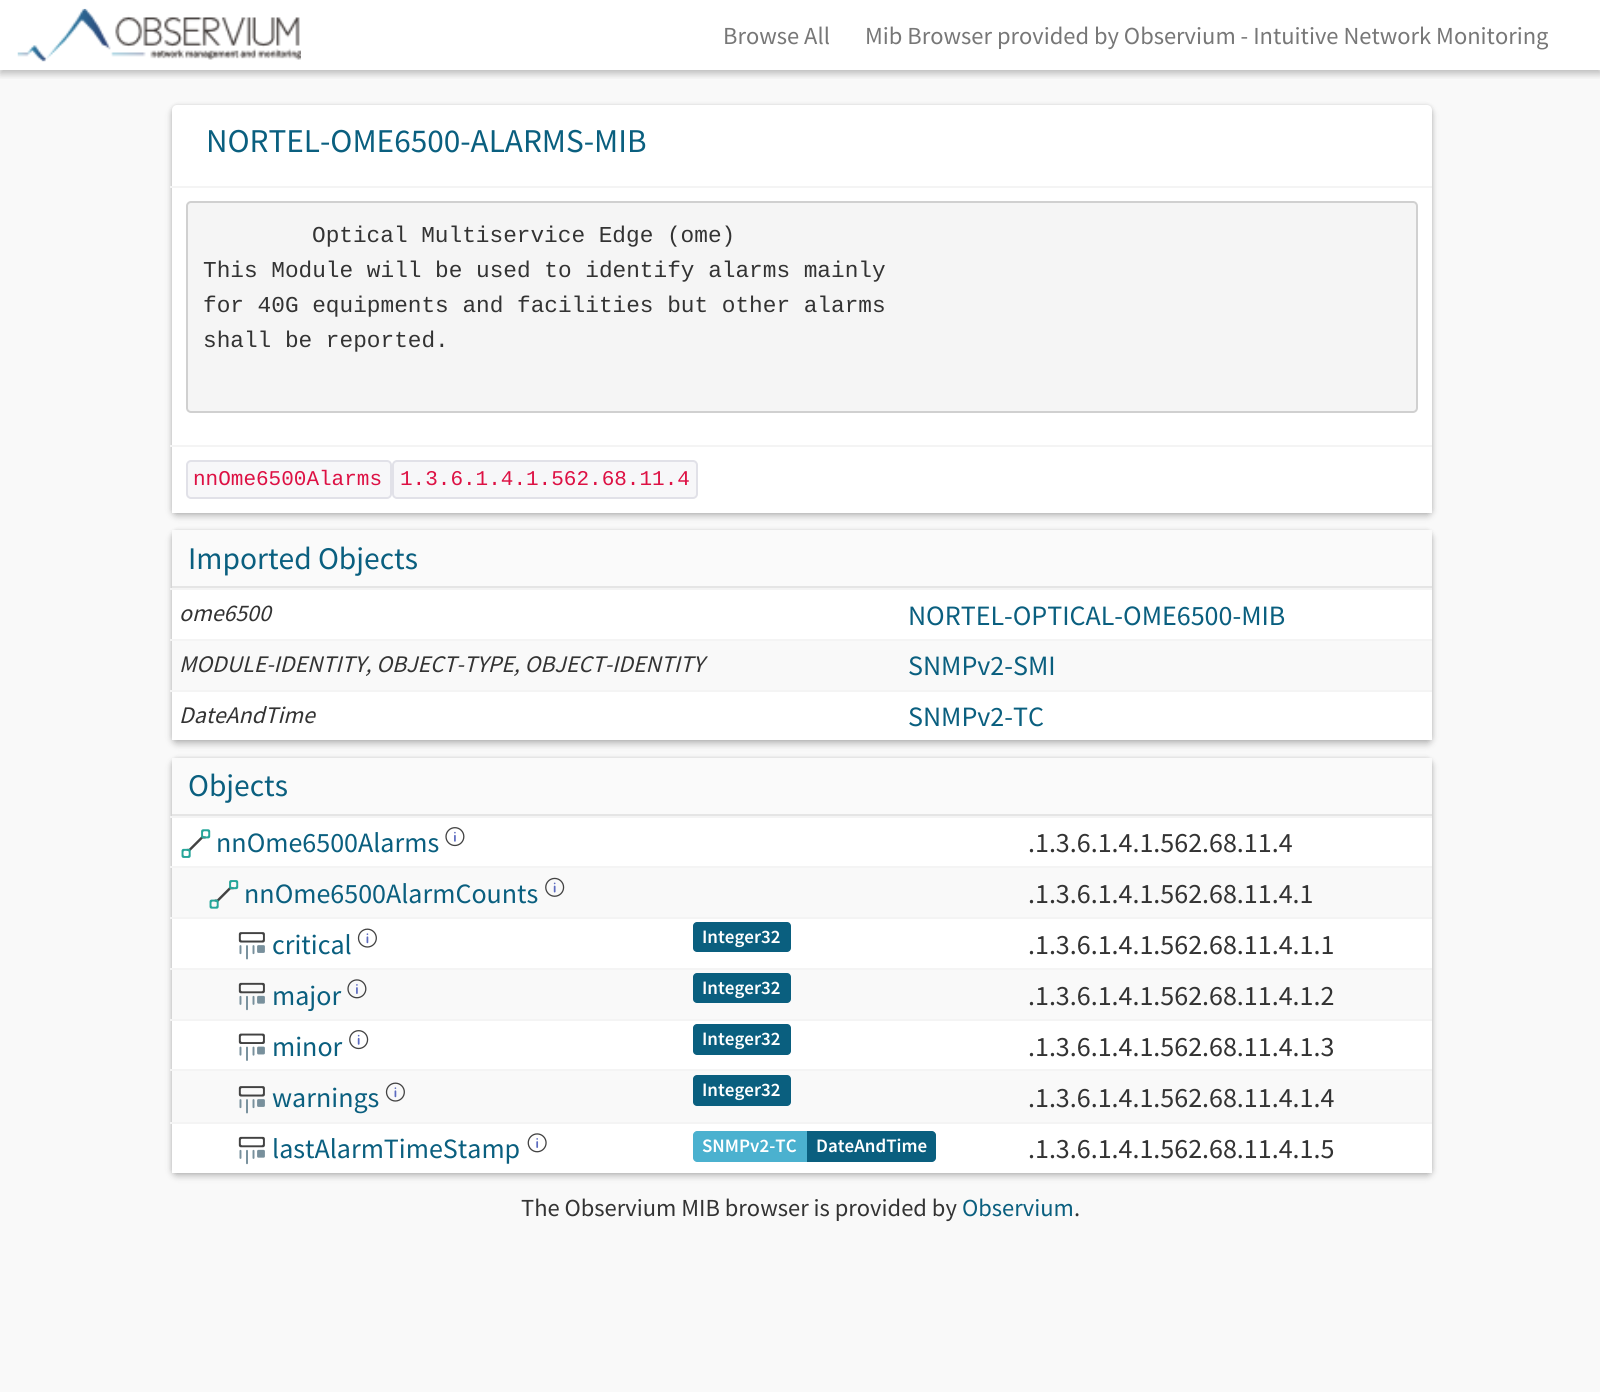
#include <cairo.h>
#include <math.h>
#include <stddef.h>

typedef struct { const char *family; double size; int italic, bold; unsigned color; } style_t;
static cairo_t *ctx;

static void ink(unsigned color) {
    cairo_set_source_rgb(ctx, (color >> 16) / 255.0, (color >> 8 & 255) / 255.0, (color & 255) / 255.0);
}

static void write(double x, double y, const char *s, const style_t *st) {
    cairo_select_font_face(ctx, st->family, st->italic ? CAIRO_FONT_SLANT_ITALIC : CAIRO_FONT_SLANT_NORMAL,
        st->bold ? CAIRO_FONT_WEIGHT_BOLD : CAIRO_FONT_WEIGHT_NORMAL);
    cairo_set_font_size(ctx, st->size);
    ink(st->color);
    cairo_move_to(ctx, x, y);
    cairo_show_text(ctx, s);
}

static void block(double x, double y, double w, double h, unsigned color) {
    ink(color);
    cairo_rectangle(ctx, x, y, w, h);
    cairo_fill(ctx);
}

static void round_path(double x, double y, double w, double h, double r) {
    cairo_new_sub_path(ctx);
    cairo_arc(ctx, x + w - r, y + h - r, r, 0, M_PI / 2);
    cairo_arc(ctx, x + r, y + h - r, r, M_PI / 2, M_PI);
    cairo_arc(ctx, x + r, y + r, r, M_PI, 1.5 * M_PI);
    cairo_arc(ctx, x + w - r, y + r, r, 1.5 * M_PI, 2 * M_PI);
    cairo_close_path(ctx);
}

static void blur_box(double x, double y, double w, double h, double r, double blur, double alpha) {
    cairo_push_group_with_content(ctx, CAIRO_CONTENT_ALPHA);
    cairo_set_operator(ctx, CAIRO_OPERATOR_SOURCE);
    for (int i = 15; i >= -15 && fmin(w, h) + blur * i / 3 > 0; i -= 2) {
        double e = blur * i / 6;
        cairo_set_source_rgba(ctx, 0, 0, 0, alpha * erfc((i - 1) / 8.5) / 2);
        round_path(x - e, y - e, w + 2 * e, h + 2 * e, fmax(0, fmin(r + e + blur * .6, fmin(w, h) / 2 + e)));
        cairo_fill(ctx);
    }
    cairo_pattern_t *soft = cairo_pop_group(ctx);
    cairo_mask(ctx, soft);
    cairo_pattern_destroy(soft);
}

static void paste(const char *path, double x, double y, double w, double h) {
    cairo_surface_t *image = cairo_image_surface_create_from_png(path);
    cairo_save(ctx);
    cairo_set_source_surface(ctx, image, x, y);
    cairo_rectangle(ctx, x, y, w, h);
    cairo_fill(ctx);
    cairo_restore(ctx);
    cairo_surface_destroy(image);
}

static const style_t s1 = {"Source Sans Pro", 24.5, 0, 0, 0x777777};
static const style_t s2 = {"Source Sans Pro", 33.25, 0, 0, 0x0a5f7f};
static const style_t s3 = {"Liberation Mono", 22.75, 0, 0, 0x333333};
static const style_t s4 = {"Liberation Mono", 21, 0, 0, 0xdd1144};
static const style_t s5 = {"Source Sans Pro", 31.5, 0, 0, 0x0a5f7f};
static const style_t s6 = {"Source Sans Pro", 23.8, 1, 0, 0x333333};
static const style_t s7 = {"Source Sans Pro", 28, 0, 0, 0x0a5f7f};
static const style_t s8 = {"Source Sans Pro", 28, 0, 0, 0x333333};
static const style_t s9 = {"Source Sans Pro SemiBold", 19, 0, 0, 0xffffff};
static const style_t s10 = {"Source Sans Pro", 24.5, 0, 0, 0x333333};
static const style_t s11 = {"Source Sans Pro", 24.5, 0, 0, 0x0a5f7f};

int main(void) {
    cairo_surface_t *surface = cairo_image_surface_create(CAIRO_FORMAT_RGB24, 1600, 1392);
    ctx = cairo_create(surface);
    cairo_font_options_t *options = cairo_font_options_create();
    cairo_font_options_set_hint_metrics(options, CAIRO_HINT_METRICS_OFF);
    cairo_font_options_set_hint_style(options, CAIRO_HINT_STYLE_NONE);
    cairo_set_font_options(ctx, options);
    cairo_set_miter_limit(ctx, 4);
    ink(0xf9f9f9);
    cairo_paint(ctx);
    block(0, 0, 1600, 70, 0xffffff);
    cairo_save(ctx);
    cairo_rectangle(ctx, 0, 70, 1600, 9);
    cairo_clip(ctx);
    ink(0x000000);
    blur_box(0, 4, 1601, 70, 0, 3.5, 0.24);
    cairo_restore(ctx);
    paste("pic1.png", 17, 8, 284, 54);
    write(723, 44, "Browse All", &s1);
    write(865, 44, "Mib Browser provided by Observium - Intuitive Network Monitoring", &s1);
    ink(0x000000);
    blur_box(172, 109, 1260, 407, 5, 3.5, 0.24);
    blur_box(172, 105, 1260, 408, 5, 2, 0.12);
    ink(0xffffff);
    round_path(172, 105, 1260, 408, 5);
    cairo_fill(ctx);
    write(206, 152, "NORTEL-OME6500-ALARMS-MIB", &s2);
    block(172, 508, 1260, 5, 0xffffff);
    block(170, 186, 1262, 2, 0xf4f4f4);
    ink(0xf5f5f5);
    round_path(186, 201, 1232, 212, 5);
    cairo_fill(ctx);
    round_path(187, 202, 1230, 210, 4);
    cairo_set_source_rgba(ctx, 0, 0, 0, 0.15);
    cairo_stroke(ctx);
    write(312, 242, "Optical Multiservice Edge (ome)", &s3);
    write(203, 277, "This Module will be used to identify alarms mainly", &s3);
    write(203, 312, "for 40G equipments and facilities but other alarms", &s3);
    write(203, 347, "shall be reported.", &s3);
    block(170, 445, 1262, 2, 0xf4f4f4);
    ink(0xf7f7f9);
    round_path(187, 461, 204, 37, 4);
    cairo_fill_preserve(ctx);
    ink(0xe1e1e8);
    cairo_stroke(ctx);
    write(193, 485, "nnOme6500Alarms", &s4);
    ink(0xf7f7f9);
    round_path(393, 461, 304, 37, 4);
    cairo_fill_preserve(ctx);
    ink(0xe1e1e8);
    cairo_stroke(ctx);
    write(400, 485, "1.3.6.1.4.1.562.68.11.4", &s4);
    ink(0x000000);
    blur_box(172, 534, 1260, 210, 5, 3.5, 0.24);
    blur_box(172, 530, 1260, 210, 5, 2, 0.12);
    block(172, 530, 1260, 56, 0xfafafa);
    block(172, 586, 1260, 2, 0xe5e5e5);
    write(188, 569, "Imported Objects", &s5);
    block(172, 590, 1260, 150, 0xffffff);
    write(179, 621, "ome6500", &s6);
    block(170, 588, 1262, 2, 0xf4f4f4);
    write(908, 625, "NORTEL-OPTICAL-OME6500-MIB", &s7);
    block(172, 641, 1260, 49, 0xf9f9f9);
    write(179, 672, "MODULE-IDENTITY, OBJECT-TYPE, OBJECT-IDENTITY", &s6);
    block(170, 639, 1262, 2, 0xf4f4f4);
    write(908, 675, "SNMPv2-SMI", &s7);
    write(179, 723, "DateAndTime", &s6);
    block(170, 690, 1262, 2, 0xf4f4f4);
    write(908, 726, "SNMPv2-TC", &s7);
    ink(0x000000);
    blur_box(172, 761, 1260, 415, 5, 3.5, 0.24);
    blur_box(172, 758, 1260, 415, 5, 2, 0.12);
    block(172, 758, 1260, 56, 0xfafafa);
    block(172, 814, 1260, 2, 0xe5e5e5);
    write(188, 796, "Objects", &s5);
    block(172, 818, 1260, 355, 0xffffff);
    paste("pic2.png", 181, 829, 30, 29);
    write(216, 852, "nnOme6500Alarms", &s7);
    paste("pic3.png", 445, 827, 20, 20);
    block(170, 816, 1262, 2, 0xf4f4f4);
    write(1028, 852, ".1.3.6.1.4.1.562.68.11.4", &s8);
    block(172, 868, 1260, 49, 0xf9f9f9);
    paste("pic4.png", 209, 880, 30, 29);
    write(244, 903, "nnOme6500AlarmCounts", &s7);
    paste("pic5.png", 545, 877, 20, 20);
    block(170, 866, 1262, 2, 0xf4f4f4);
    write(1028, 903, ".1.3.6.1.4.1.562.68.11.4.1", &s8);
    paste("pic6.png", 238, 932, 27, 28);
    write(272, 954, "critical", &s7);
    paste("pic7.png", 357, 928, 20, 20);
    round_path(693, 922, 98, 30, 4);
    cairo_fill(ctx);
    write(702, 943, "Integer32", &s9);
    block(170, 917, 1262, 2, 0xf4f4f4);
    write(1028, 954, ".1.3.6.1.4.1.562.68.11.4.1.1", &s8);
    block(172, 970, 1260, 49, 0xf9f9f9);
    paste("pic8.png", 238, 982, 27, 29);
    write(272, 1005, "major", &s7);
    paste("pic9.png", 347, 979, 20, 20);
    round_path(693, 973, 98, 30, 4);
    cairo_fill(ctx);
    write(702, 994, "Integer32", &s9);
    block(170, 968, 1262, 2, 0xf4f4f4);
    write(1028, 1005, ".1.3.6.1.4.1.562.68.11.4.1.2", &s8);
    paste("pic10.png", 238, 1033, 27, 28);
    write(272, 1056, "minor", &s7);
    paste("pic11.png", 349, 1030, 20, 20);
    round_path(693, 1024, 98, 31, 4);
    cairo_fill(ctx);
    write(702, 1045, "Integer32", &s9);
    block(170, 1019, 1262, 2, 0xf4f4f4);
    write(1028, 1056, ".1.3.6.1.4.1.562.68.11.4.1.3", &s8);
    block(172, 1071, 1260, 51, 0xf9f9f9);
    paste("pic12.png", 238, 1086, 27, 28);
    write(272, 1107, "warnings", &s7);
    paste("pic13.png", 385, 1082, 20, 20);
    round_path(693, 1075, 98, 31, 4);
    cairo_fill(ctx);
    write(702, 1096, "Integer32", &s9);
    block(170, 1069, 1262, 2, 0xf4f4f4);
    write(1028, 1107, ".1.3.6.1.4.1.562.68.11.4.1.4", &s8);
    paste("pic14.png", 238, 1136, 27, 29);
    write(272, 1158, "lastAlarmTimeStamp", &s7);
    paste("pic15.png", 527, 1133, 20, 20);
    ink(0x4bb1cf);
    cairo_new_path(ctx);
    cairo_move_to(ctx, 697, 1131);
    cairo_line_to(ctx, 807, 1131);
    cairo_line_to(ctx, 807, 1162);
    cairo_line_to(ctx, 697, 1162);
    cairo_curve_to(ctx, 695, 1162, 693, 1160, 693, 1158);
    cairo_line_to(ctx, 693, 1135);
    cairo_curve_to(ctx, 693, 1133, 695, 1131, 697, 1131);
    cairo_close_path(ctx);
    cairo_fill(ctx);
    write(702, 1152, "SNMPv2-TC", &s9);
    ink(0x0a5f7f);
    cairo_new_path(ctx);
    cairo_move_to(ctx, 807, 1131);
    cairo_line_to(ctx, 932, 1131);
    cairo_curve_to(ctx, 934, 1131, 936, 1133, 936, 1135);
    cairo_line_to(ctx, 936, 1158);
    cairo_curve_to(ctx, 936, 1160, 934, 1162, 932, 1162);
    cairo_line_to(ctx, 807, 1162);
    cairo_close_path(ctx);
    cairo_fill(ctx);
    write(816, 1152, "DateAndTime", &s9);
    block(170, 1122, 1262, 2, 0xf4f4f4);
    write(1028, 1158, ".1.3.6.1.4.1.562.68.11.4.1.5", &s8);
    write(521, 1216, "The Observium MIB browser is provided by", &s10);
    write(962, 1216, "Observium", &s11);
    write(1074, 1216, ".", &s10);
    cairo_surface_write_to_png(surface, "screenshot.png");
    cairo_font_options_destroy(options);
    cairo_destroy(ctx);
    cairo_surface_destroy(surface);
    return 0;
}
